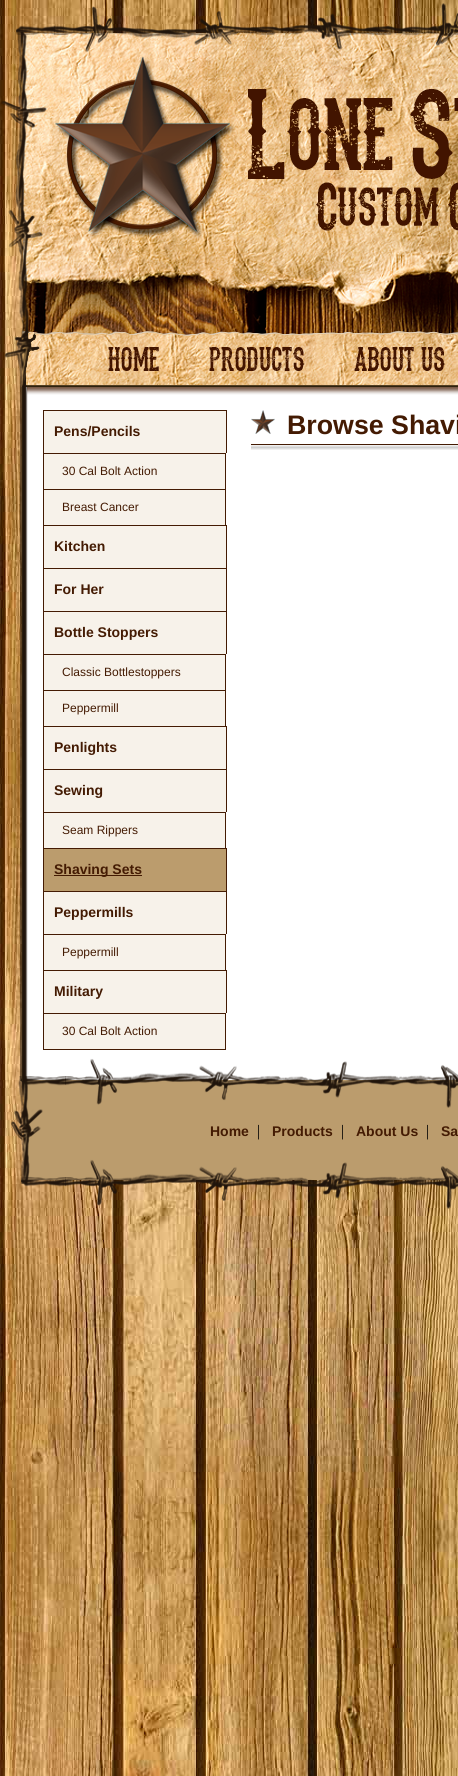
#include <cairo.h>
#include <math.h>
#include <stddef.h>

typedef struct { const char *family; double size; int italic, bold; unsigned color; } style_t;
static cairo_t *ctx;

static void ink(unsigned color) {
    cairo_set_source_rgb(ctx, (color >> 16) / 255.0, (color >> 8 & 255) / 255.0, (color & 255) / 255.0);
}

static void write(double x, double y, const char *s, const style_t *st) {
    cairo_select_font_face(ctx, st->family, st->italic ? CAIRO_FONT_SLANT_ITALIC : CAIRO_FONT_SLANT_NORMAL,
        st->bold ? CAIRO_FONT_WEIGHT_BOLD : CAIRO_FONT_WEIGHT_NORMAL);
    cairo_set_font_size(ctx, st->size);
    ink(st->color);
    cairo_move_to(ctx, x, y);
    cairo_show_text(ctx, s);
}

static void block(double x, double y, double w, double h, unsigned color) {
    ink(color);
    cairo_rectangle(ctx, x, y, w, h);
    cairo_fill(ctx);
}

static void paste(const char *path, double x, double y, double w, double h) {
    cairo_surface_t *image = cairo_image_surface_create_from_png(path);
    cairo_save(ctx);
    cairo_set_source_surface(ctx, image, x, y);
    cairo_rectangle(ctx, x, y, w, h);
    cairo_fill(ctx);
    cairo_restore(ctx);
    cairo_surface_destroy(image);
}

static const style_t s1 = {"Liberation Sans", 14, 0, 1, 0x441b03};
static const style_t s2 = {"Liberation Sans", 12, 0, 0, 0x441b03};
static const style_t s3 = {"Liberation Sans", 26.75, 0, 1, 0x441b03};
static const style_t s4 = {"Liberation Serif", 16, 0, 0, 0x000000};

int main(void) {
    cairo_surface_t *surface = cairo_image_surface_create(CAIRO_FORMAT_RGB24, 458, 1776);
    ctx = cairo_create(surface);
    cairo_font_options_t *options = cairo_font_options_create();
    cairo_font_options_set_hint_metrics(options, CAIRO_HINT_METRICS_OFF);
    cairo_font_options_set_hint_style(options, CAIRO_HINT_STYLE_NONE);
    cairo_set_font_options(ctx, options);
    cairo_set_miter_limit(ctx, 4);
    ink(0xffffff);
    cairo_paint(ctx);
    paste("pic1.png", 0, 0, 458, 1776);
    paste("pic2.png", 1, 3, 457, 392);
    paste("pic3.png", 108, 347, 51, 24);
    paste("pic4.png", 209, 347, 96, 24);
    paste("pic5.png", 354, 347, 91, 24);
    paste("pic6.png", 20, 395, 23, 663);
    block(43, 395, 415, 663, 0xffffff);
    block(43, 1049, 183, 1, 0x441b03);
    block(43, 410, 1, 640, 0x441b03);
    block(44, 411, 182, 42, 0xf7f2ea);
    block(44, 410, 183, 1, 0x441b03);
    block(226, 410, 1, 43, 0x441b03);
    write(54, 436, "Pens/Pencils", &s1);
    block(44, 454, 181, 35, 0xf7f2ea);
    block(44, 453, 182, 1, 0x441b03);
    block(225, 453, 1, 36, 0x441b03);
    write(62, 475, "30 Cal Bolt Action", &s2);
    block(44, 490, 181, 35, 0xf7f2ea);
    block(44, 489, 182, 1, 0x441b03);
    block(225, 489, 1, 36, 0x441b03);
    write(62, 511, "Breast Cancer", &s2);
    block(44, 526, 182, 42, 0xf7f2ea);
    block(44, 525, 183, 1, 0x441b03);
    block(226, 525, 1, 43, 0x441b03);
    write(54, 551, "Kitchen", &s1);
    block(44, 569, 182, 42, 0xf7f2ea);
    block(44, 568, 183, 1, 0x441b03);
    block(226, 568, 1, 43, 0x441b03);
    write(54, 594, "For Her", &s1);
    block(44, 612, 182, 42, 0xf7f2ea);
    block(44, 611, 183, 1, 0x441b03);
    block(226, 611, 1, 43, 0x441b03);
    write(54, 637, "Bottle Stoppers", &s1);
    block(44, 655, 181, 35, 0xf7f2ea);
    block(44, 654, 182, 1, 0x441b03);
    block(225, 654, 1, 36, 0x441b03);
    write(62, 676, "Classic Bottlestoppers", &s2);
    block(44, 691, 181, 35, 0xf7f2ea);
    block(44, 690, 182, 1, 0x441b03);
    block(225, 690, 1, 36, 0x441b03);
    write(62, 712, "Peppermill", &s2);
    block(44, 727, 182, 42, 0xf7f2ea);
    block(44, 726, 183, 1, 0x441b03);
    block(226, 726, 1, 43, 0x441b03);
    write(54, 752, "Penlights", &s1);
    block(44, 770, 182, 42, 0xf7f2ea);
    block(44, 769, 183, 1, 0x441b03);
    block(226, 769, 1, 43, 0x441b03);
    write(54, 795, "Sewing", &s1);
    block(44, 813, 181, 35, 0xf7f2ea);
    block(44, 812, 182, 1, 0x441b03);
    block(225, 812, 1, 36, 0x441b03);
    write(62, 834, "Seam Rippers", &s2);
    block(44, 849, 182, 42, 0xbb9c6d);
    block(44, 848, 183, 1, 0x441b03);
    block(226, 848, 1, 43, 0x441b03);
    block(54, 875, 88, 1, 0x441b03);
    write(54, 874, "Shaving Sets", &s1);
    block(44, 892, 182, 42, 0xf7f2ea);
    block(44, 891, 183, 1, 0x441b03);
    block(226, 891, 1, 43, 0x441b03);
    write(54, 917, "Peppermills", &s1);
    block(44, 935, 181, 35, 0xf7f2ea);
    block(44, 934, 182, 1, 0x441b03);
    block(225, 934, 1, 36, 0x441b03);
    write(62, 956, "Peppermill", &s2);
    block(44, 971, 182, 42, 0xf7f2ea);
    block(44, 970, 183, 1, 0x441b03);
    block(226, 970, 1, 43, 0x441b03);
    write(54, 996, "Military", &s1);
    block(44, 1014, 181, 35, 0xf7f2ea);
    block(44, 1013, 182, 1, 0x441b03);
    block(225, 1013, 1, 36, 0x441b03);
    write(62, 1035, "30 Cal Bolt Action", &s2);
    paste("pic7.png", 251, 410, 24, 24);
    write(287, 434, "Browse Shavi", &s3);
    paste("pic8.png", 251, 444, 207, 6);
    paste("pic9.png", 10, 1058, 448, 152);
    write(210, 1136, "Home", &s1);
    write(257, 1136, "|", &s4);
    write(272, 1136, "Products", &s1);
    write(341, 1136, "|", &s4);
    write(356, 1136, "About Us", &s1);
    write(426, 1136, "|", &s4);
    write(441, 1136, "Sa", &s1);
    cairo_surface_write_to_png(surface, "screenshot.png");
    cairo_font_options_destroy(options);
    cairo_destroy(ctx);
    cairo_surface_destroy(surface);
    return 0;
}
